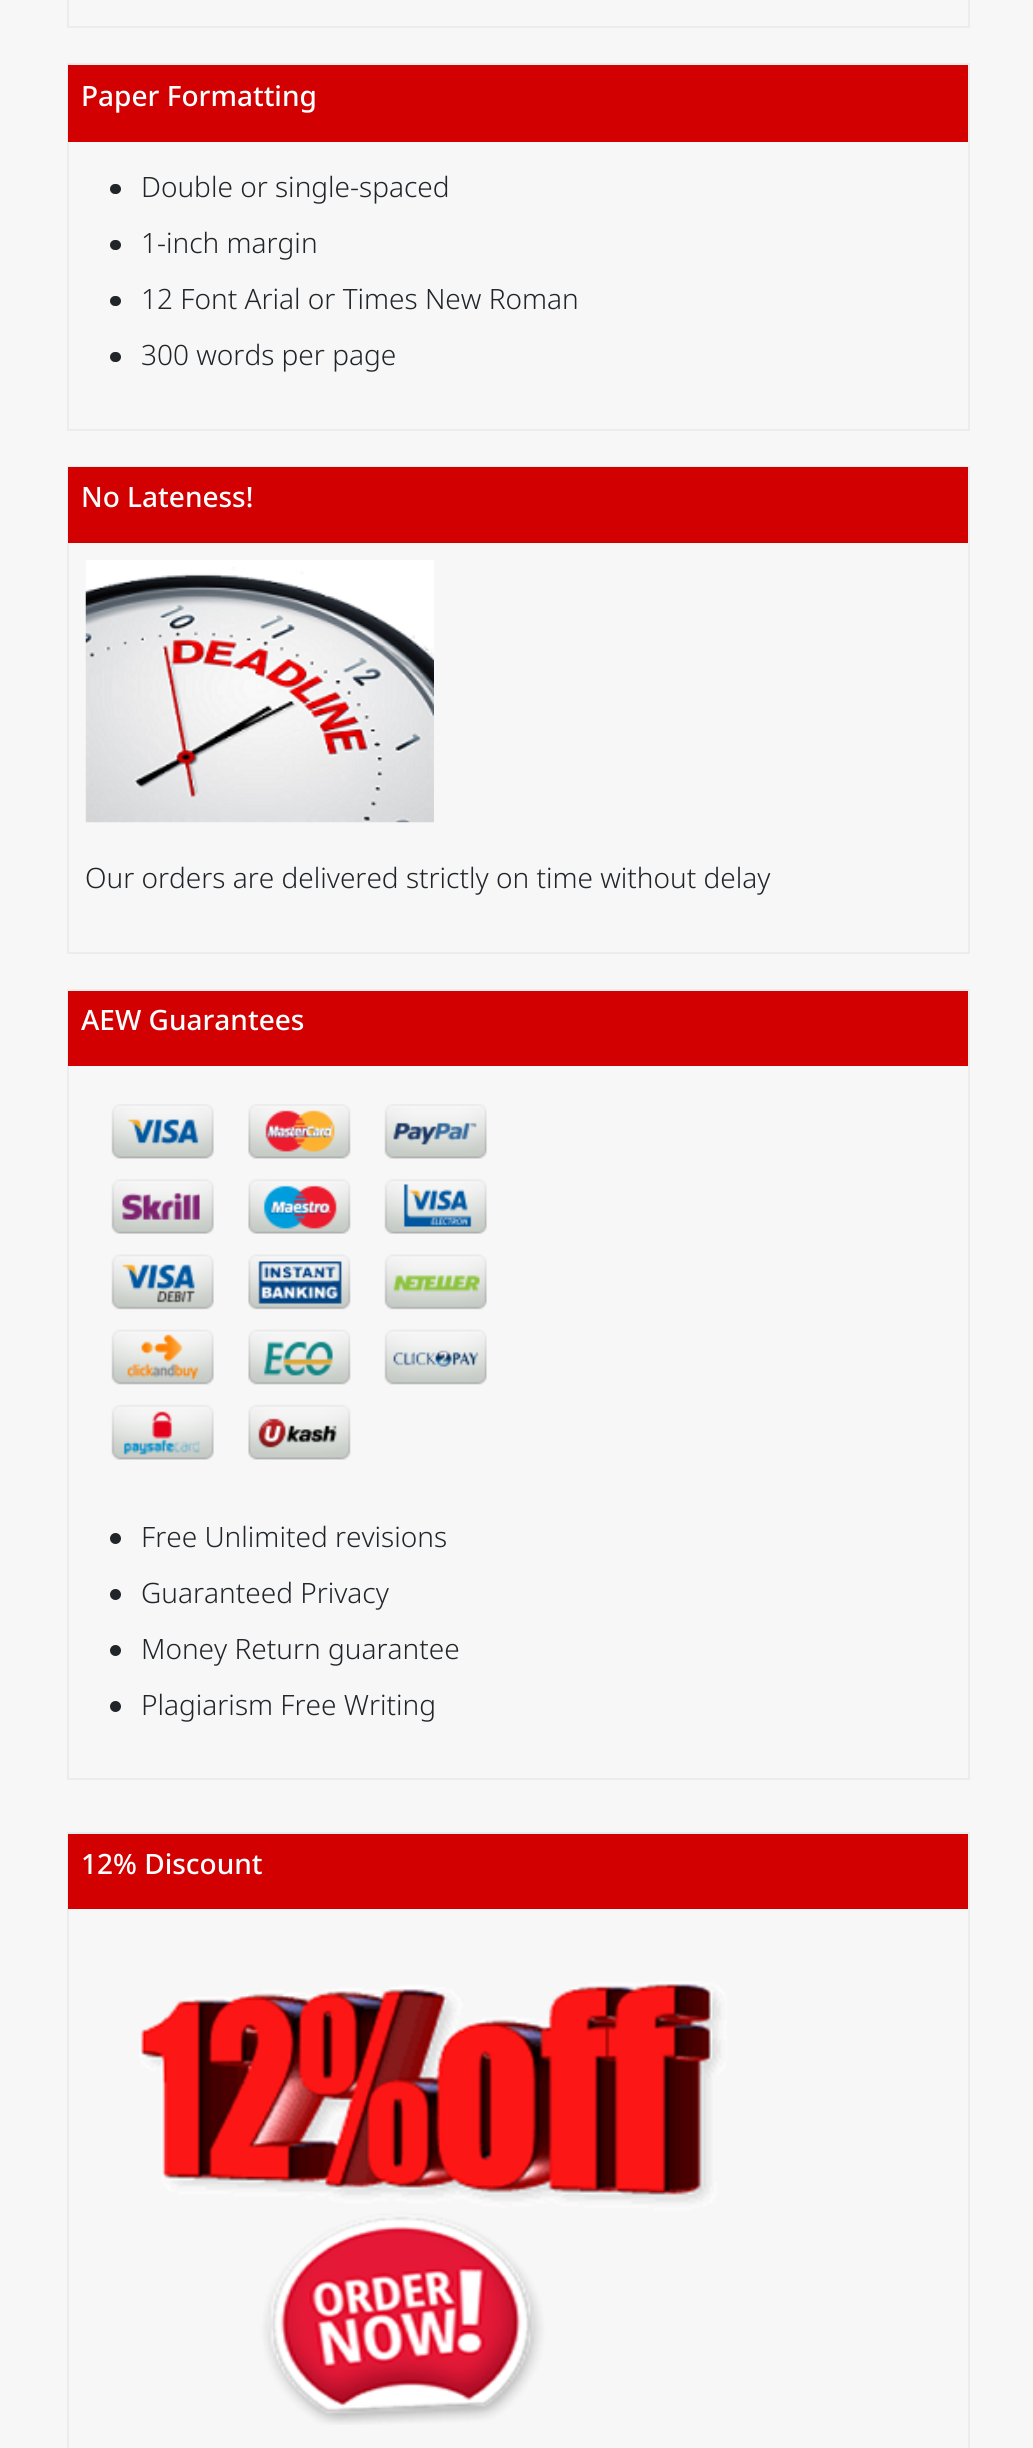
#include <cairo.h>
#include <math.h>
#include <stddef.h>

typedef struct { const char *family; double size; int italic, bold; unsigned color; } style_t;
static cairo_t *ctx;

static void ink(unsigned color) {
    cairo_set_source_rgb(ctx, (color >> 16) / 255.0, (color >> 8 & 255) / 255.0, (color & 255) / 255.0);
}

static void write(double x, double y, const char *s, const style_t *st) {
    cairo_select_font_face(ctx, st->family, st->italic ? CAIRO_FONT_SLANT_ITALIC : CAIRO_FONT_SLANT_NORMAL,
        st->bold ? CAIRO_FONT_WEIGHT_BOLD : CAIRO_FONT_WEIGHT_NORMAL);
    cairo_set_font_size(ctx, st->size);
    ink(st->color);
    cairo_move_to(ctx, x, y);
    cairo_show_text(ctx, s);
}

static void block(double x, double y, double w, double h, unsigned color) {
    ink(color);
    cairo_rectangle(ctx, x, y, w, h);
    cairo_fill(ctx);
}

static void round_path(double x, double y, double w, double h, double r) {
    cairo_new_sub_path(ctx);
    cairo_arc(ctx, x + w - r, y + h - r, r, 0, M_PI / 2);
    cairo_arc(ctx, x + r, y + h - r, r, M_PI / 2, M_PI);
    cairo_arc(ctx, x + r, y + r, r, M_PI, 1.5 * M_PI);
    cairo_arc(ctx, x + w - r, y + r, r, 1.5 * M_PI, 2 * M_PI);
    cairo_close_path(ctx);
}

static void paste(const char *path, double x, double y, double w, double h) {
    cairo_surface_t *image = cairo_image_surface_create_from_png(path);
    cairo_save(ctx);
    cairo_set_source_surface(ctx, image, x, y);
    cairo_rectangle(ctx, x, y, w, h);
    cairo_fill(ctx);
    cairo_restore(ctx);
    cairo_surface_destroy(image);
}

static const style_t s1 = {"Noto Sans Medium", 28, 0, 0, 0xffffff};
static const style_t s2 = {"Noto Sans Light", 28, 0, 0, 0x212529};

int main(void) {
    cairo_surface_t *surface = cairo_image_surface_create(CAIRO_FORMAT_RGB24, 1033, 2448);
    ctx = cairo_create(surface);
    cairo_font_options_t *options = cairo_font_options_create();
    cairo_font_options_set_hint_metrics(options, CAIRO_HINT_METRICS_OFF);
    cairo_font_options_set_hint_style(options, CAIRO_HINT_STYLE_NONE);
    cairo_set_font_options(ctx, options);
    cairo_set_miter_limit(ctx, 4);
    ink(0xf7f7f7);
    cairo_paint(ctx);
    cairo_rectangle(ctx, 68, -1, 901, 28);
    ink(0xececec);
    cairo_stroke(ctx);
    cairo_rectangle(ctx, 68, 64, 901, 366);
    cairo_stroke(ctx);
    block(68, 65, 900, 77, 0xd20000);
    write(81, 106, "Paper Formatting", &s1);
    ink(0x212529);
    round_path(110, 184, 11, 10, 5);
    cairo_fill(ctx);
    write(141, 197, "Double or single-spaced", &s2);
    round_path(110, 240, 11, 10, 5);
    cairo_fill(ctx);
    write(141, 253, "1-inch margin", &s2);
    round_path(110, 296, 11, 10, 5);
    cairo_fill(ctx);
    write(141, 309, "12 Font Arial or Times New Roman", &s2);
    round_path(110, 352, 11, 10, 5);
    cairo_fill(ctx);
    write(141, 365, "300 words per page", &s2);
    cairo_rectangle(ctx, 68, 467, 901, 486);
    ink(0xececec);
    cairo_stroke(ctx);
    block(68, 467, 900, 76, 0xd20000);
    write(81, 507, "No Lateness!", &s1);
    paste("pic1.png", 85, 560, 349, 263);
    write(85, 888, "Our orders are delivered strictly on time without delay", &s2);
    cairo_rectangle(ctx, 68, 990, 901, 789);
    ink(0xececec);
    cairo_stroke(ctx);
    block(68, 991, 900, 75, 0xd20000);
    write(81, 1030, "AEW Guarantees", &s1);
    paste("pic2.png", 111, 1104, 376, 356);
    ink(0x212529);
    cairo_arc(ctx, 115.5, 1538.5, 5.5, 0, 2 * M_PI);
    cairo_fill(ctx);
    write(141, 1547, "Free Unlimited revisions", &s2);
    cairo_new_path(ctx);
    cairo_arc(ctx, 115.5, 1594.5, 5.5, 0, 2 * M_PI);
    cairo_fill(ctx);
    write(141, 1603, "Guaranteed Privacy", &s2);
    cairo_new_path(ctx);
    cairo_arc(ctx, 115.5, 1650.5, 5.5, 0, 2 * M_PI);
    cairo_fill(ctx);
    write(141, 1659, "Money Return guarantee", &s2);
    cairo_new_path(ctx);
    cairo_arc(ctx, 115.5, 1706.5, 5.5, 0, 2 * M_PI);
    cairo_fill(ctx);
    write(141, 1715, "Plagiarism Free Writing", &s2);
    cairo_rectangle(ctx, 68, 1833, 901, 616);
    ink(0xececec);
    cairo_stroke(ctx);
    block(68, 1834, 900, 75, 0xd20000);
    write(81, 1874, "12% Discount", &s1);
    paste("pic3.png", 139, 1981, 588, 444);
    cairo_surface_write_to_png(surface, "screenshot.png");
    cairo_font_options_destroy(options);
    cairo_destroy(ctx);
    cairo_surface_destroy(surface);
    return 0;
}
